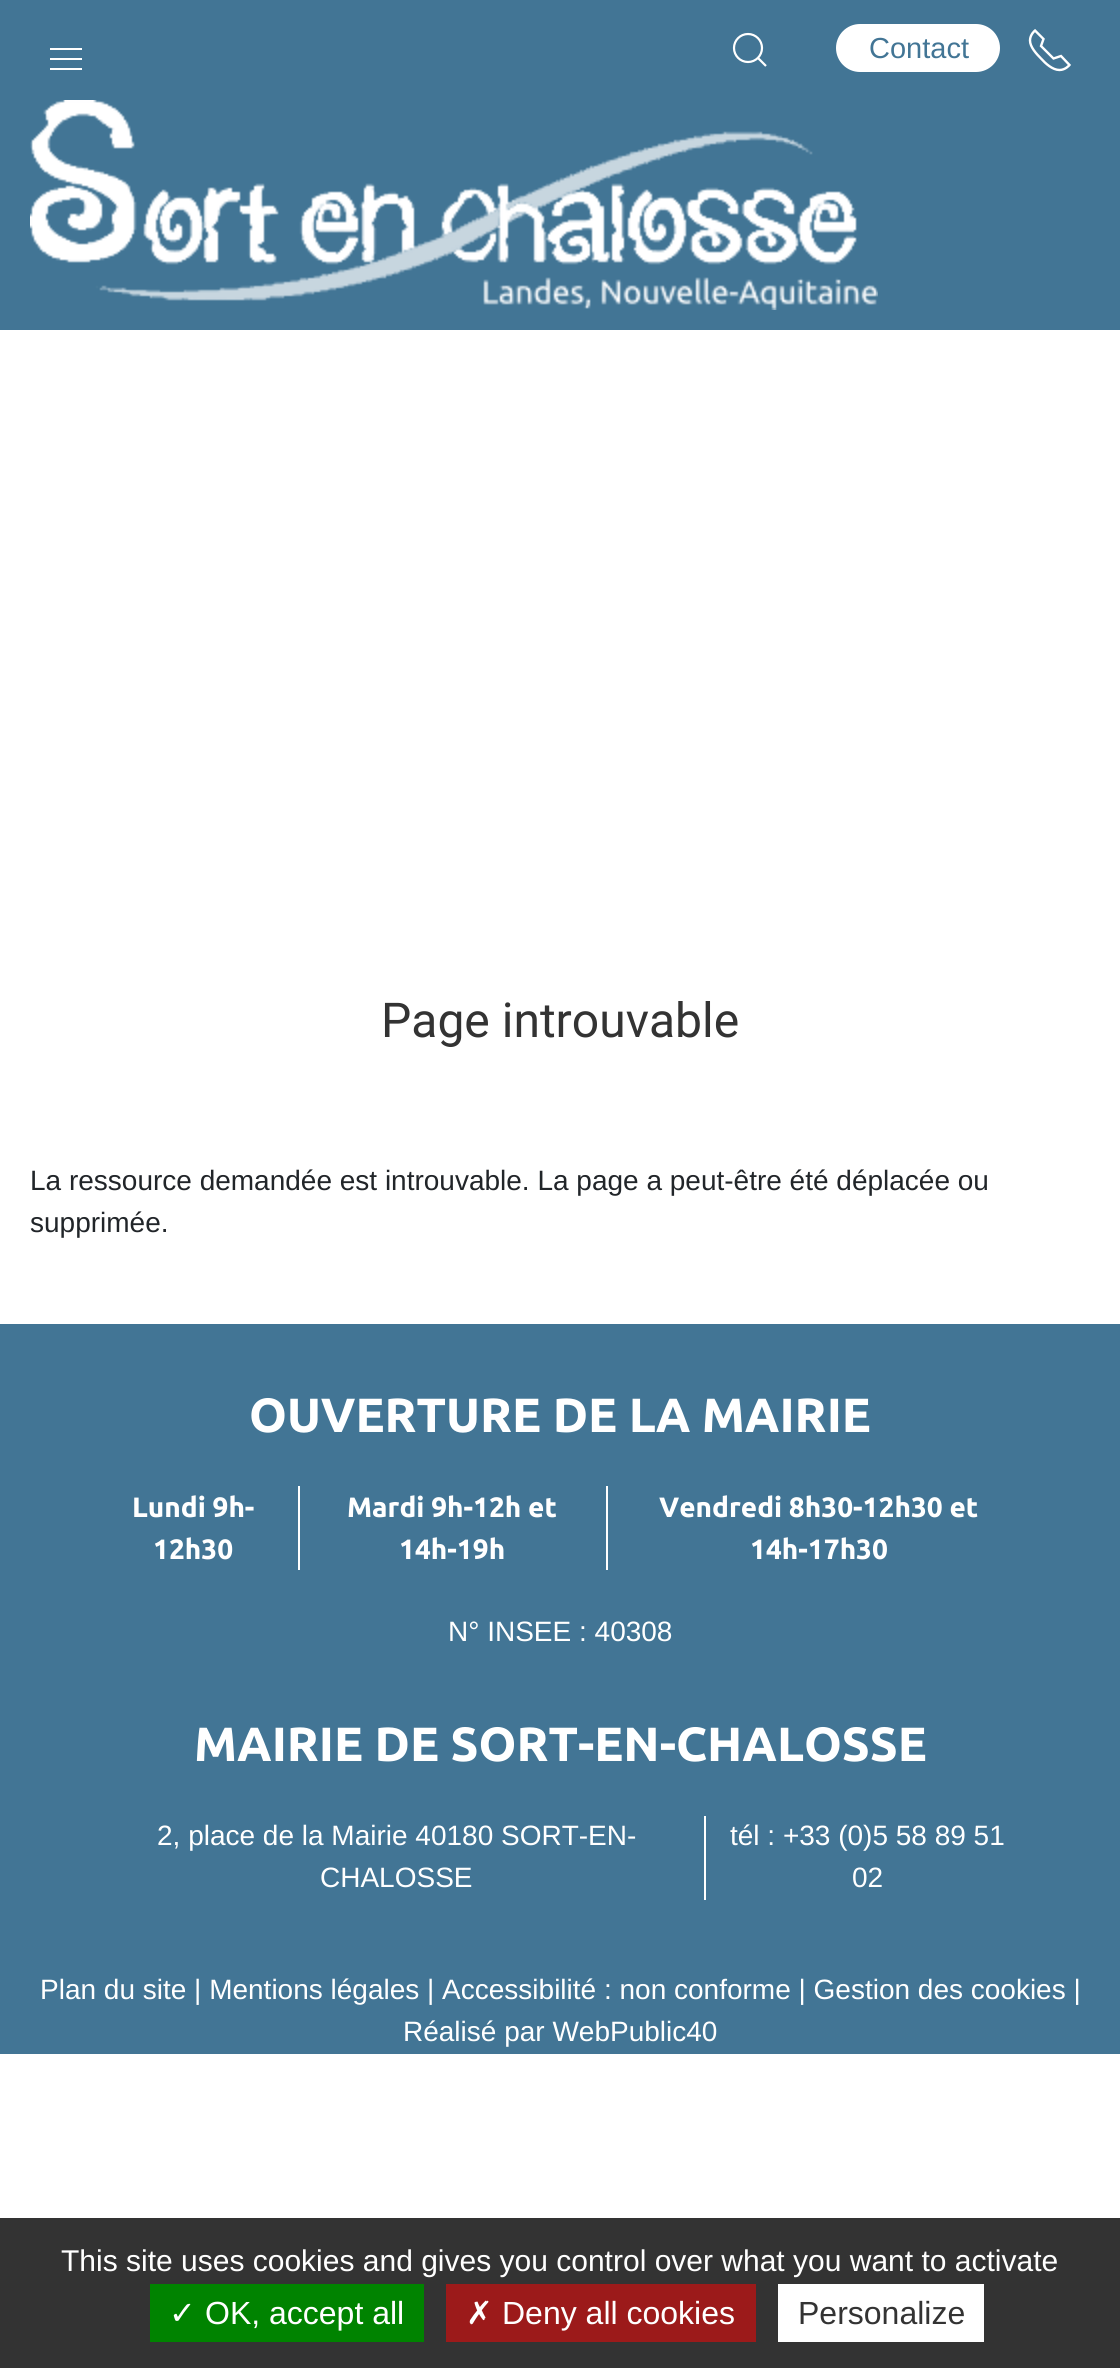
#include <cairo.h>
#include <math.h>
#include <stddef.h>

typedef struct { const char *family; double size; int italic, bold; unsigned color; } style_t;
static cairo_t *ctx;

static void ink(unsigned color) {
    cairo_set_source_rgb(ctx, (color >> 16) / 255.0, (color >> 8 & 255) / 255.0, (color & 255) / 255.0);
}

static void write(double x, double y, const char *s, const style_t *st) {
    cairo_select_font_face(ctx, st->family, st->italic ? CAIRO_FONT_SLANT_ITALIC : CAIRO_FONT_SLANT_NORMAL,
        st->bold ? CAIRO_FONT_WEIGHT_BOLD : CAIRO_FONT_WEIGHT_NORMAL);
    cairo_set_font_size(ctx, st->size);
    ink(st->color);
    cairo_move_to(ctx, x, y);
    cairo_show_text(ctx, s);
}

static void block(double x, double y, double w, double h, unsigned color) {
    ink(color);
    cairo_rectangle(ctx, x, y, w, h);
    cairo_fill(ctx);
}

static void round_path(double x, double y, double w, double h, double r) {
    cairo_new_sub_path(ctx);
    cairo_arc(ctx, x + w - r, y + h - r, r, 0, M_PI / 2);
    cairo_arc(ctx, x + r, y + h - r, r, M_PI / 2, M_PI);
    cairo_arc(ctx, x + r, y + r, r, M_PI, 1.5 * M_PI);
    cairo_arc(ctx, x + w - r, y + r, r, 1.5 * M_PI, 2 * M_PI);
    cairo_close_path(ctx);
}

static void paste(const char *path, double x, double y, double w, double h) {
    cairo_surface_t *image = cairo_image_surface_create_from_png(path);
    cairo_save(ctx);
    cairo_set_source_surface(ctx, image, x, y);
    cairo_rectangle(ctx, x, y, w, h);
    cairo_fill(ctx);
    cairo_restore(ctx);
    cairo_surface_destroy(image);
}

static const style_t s1 = {"Liberation Sans", 29, 0, 0, 0x427595};
static const style_t s2 = {"Roboto", 48, 0, 0, 0x333333};
static const style_t s3 = {"Liberation Sans", 28, 0, 0, 0x212529};
static const style_t s4 = {"Ubuntu", 48, 0, 1, 0xffffff};
static const style_t s5 = {"Ubuntu", 28, 0, 1, 0xffffff};
static const style_t s6 = {"Liberation Sans", 28, 0, 0, 0xffffff};
static const style_t s7 = {"Liberation Sans", 30, 0, 0, 0xffffff};
static const style_t s8 = {"DejaVu Sans", 32, 0, 0, 0xffffff};
static const style_t s9 = {"Liberation Sans", 32, 0, 0, 0xffffff};
static const style_t s10 = {"Liberation Sans", 32, 0, 0, 0x333333};

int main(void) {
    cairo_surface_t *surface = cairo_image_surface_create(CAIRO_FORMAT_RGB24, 1120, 2368);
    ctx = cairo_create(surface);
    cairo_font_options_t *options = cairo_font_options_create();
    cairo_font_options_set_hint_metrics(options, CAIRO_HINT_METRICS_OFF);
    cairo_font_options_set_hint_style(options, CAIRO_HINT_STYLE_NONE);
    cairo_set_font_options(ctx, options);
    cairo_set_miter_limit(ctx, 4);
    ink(0xffffff);
    cairo_paint(ctx);
    block(0, 0, 1120, 330, 0x427595);
    block(50, 48, 32, 2, 0xffffff);
    block(50, 58, 32, 2, 0xffffff);
    block(50, 68, 32, 2, 0xffffff);
    cairo_arc(ctx, 748, 48, 14, 0, 2 * M_PI);
    cairo_set_line_width(ctx, 2.2);
    cairo_stroke(ctx);
    cairo_new_path(ctx);
    cairo_move_to(ctx, 758, 58);
    cairo_line_to(ctx, 766, 66);
    cairo_close_path(ctx);
    cairo_stroke(ctx);
    round_path(837, 25, 162, 46, 23);
    cairo_fill_preserve(ctx);
    cairo_set_line_width(ctx, 2);
    cairo_stroke(ctx);
    write(869, 58, "Contact", &s1);
    cairo_new_path(ctx);
    cairo_move_to(ctx, 1041, 58.5);
    cairo_curve_to(ctx, 1045.5, 63.5, 1052.5, 70, 1059.5, 70);
    cairo_curve_to(ctx, 1065.5, 70, 1069.5, 65, 1069.5, 65);
    cairo_line_to(ctx, 1061, 56);
    cairo_line_to(ctx, 1053.5, 58.5);
    cairo_line_to(ctx, 1041, 46);
    cairo_line_to(ctx, 1043.5, 39);
    cairo_line_to(ctx, 1035, 30.5);
    cairo_curve_to(ctx, 1035, 30.5, 1030, 34.5, 1030, 40.5);
    cairo_curve_to(ctx, 1030, 47, 1036.5, 54, 1041, 58.5);
    ink(0xffffff);
    cairo_set_line_width(ctx, 2.4);
    cairo_stroke(ctx);
    paste("pic1.png", 30, 100, 848, 210);
    write(381, 1037, "Page introuvable", &s2);
    write(30, 1190, "La ressource demandée est introuvable. La page a peut-être été déplacée ou", &s3);
    write(30, 1232, "supprimée.", &s3);
    block(0, 1324, 1120, 730, 0x427595);
    write(249, 1432, "OUVERTURE DE LA MAIRIE", &s4);
    write(132, 1517, "Lundi 9h-", &s5);
    write(153, 1559, "12h30", &s5);
    block(298, 1486, 2, 84, 0xffffff);
    write(347, 1517, "Mardi 9h-12h et", &s5);
    write(399, 1559, "14h-19h", &s5);
    block(606, 1486, 2, 84, 0xffffff);
    write(659, 1517, "Vendredi 8h30-12h30 et", &s5);
    write(750, 1559, "14h-17h30", &s5);
    write(448, 1641, "N° INSEE : 40308", &s6);
    write(194, 1761, "MAIRIE DE SORT-EN-CHALOSSE", &s4);
    write(157, 1845, "2, place de la Mairie 40180 SORT-EN-", &s6);
    write(320, 1887, "CHALOSSE", &s6);
    block(704, 1816, 2, 84, 0xffffff);
    write(730, 1845, "tél : +33 (0)5 58 89 51", &s6);
    write(852, 1887, "02", &s6);
    write(40, 1999, "Plan du site | Mentions légales | Accessibilité : non conforme | Gestion des cookies |", &s6);
    write(403, 2041, "Réalisé par WebPublic40", &s6);
    block(0, 2218, 1120, 150, 0x333333);
    write(61, 2271, "This site uses cookies and gives you control over what you want to activate", &s7);
    block(150, 2284, 274, 58, 0x008300);
    write(169, 2324, "✓", &s8);
    write(205, 2324, "OK, accept all", &s9);
    block(446, 2284, 310, 58, 0x9c1a1a);
    write(466, 2324, "✗", &s8);
    write(502, 2324, "Deny all cookies", &s9);
    block(778, 2284, 206, 58, 0xffffff);
    write(798, 2324, "Personalize", &s10);
    cairo_surface_write_to_png(surface, "screenshot.png");
    cairo_font_options_destroy(options);
    cairo_destroy(ctx);
    cairo_surface_destroy(surface);
    return 0;
}
